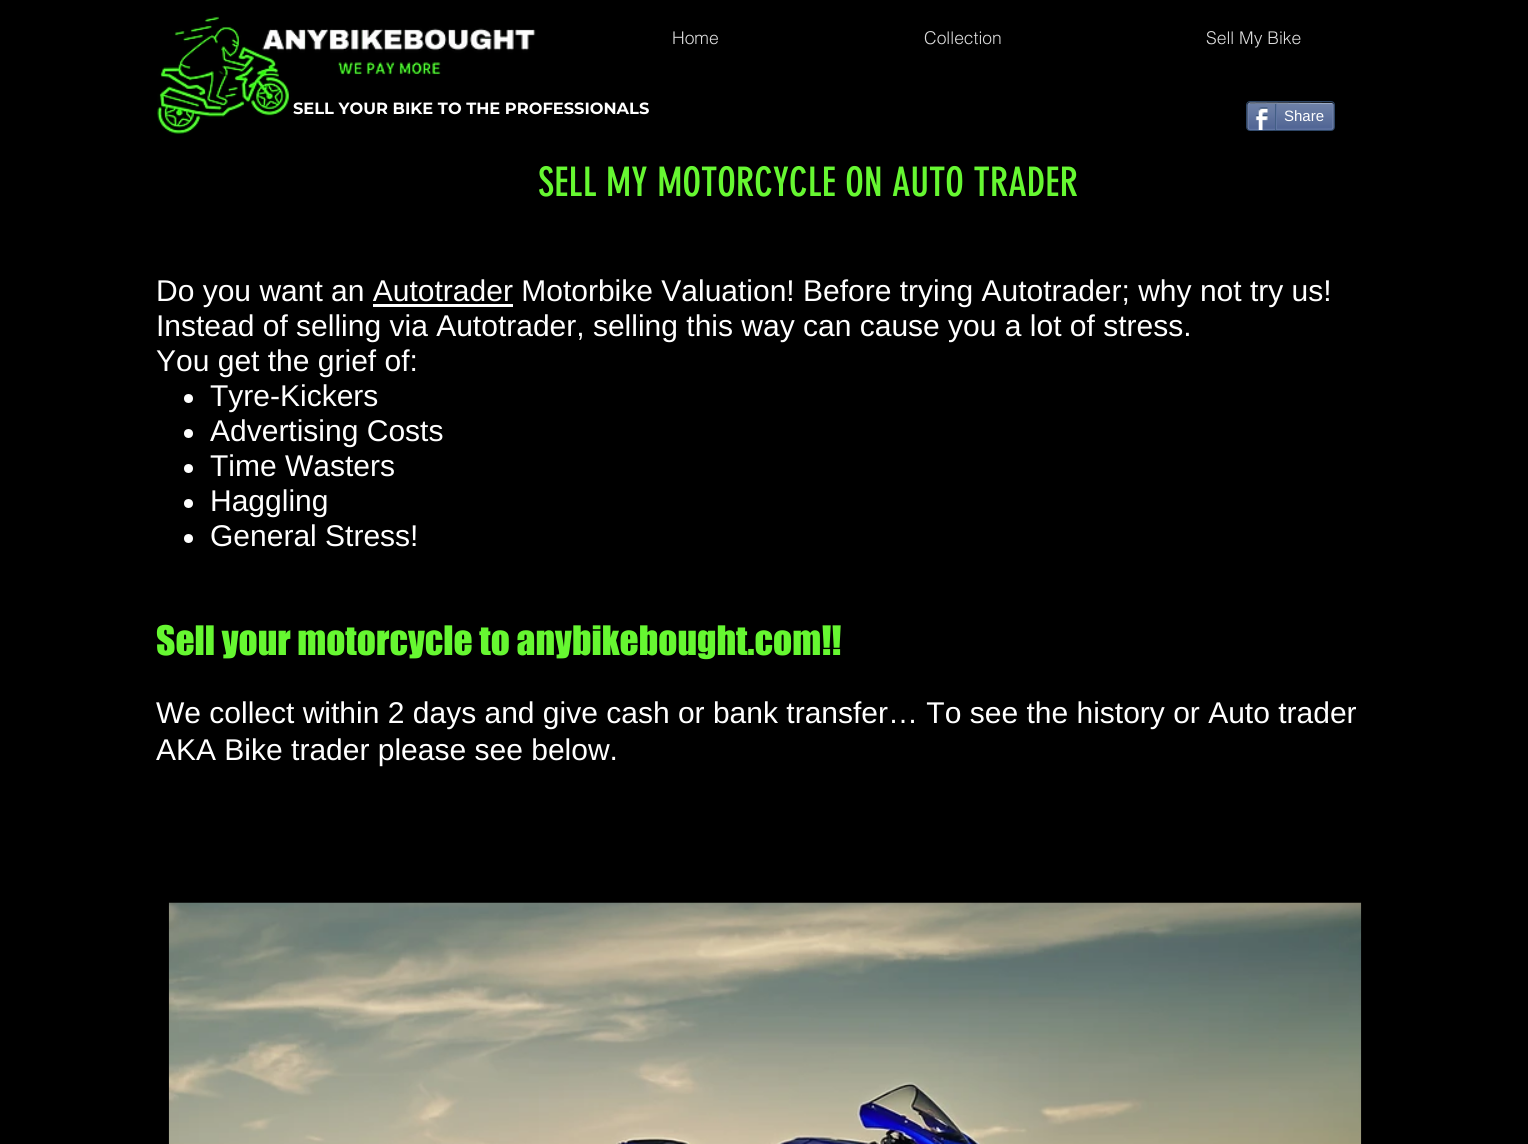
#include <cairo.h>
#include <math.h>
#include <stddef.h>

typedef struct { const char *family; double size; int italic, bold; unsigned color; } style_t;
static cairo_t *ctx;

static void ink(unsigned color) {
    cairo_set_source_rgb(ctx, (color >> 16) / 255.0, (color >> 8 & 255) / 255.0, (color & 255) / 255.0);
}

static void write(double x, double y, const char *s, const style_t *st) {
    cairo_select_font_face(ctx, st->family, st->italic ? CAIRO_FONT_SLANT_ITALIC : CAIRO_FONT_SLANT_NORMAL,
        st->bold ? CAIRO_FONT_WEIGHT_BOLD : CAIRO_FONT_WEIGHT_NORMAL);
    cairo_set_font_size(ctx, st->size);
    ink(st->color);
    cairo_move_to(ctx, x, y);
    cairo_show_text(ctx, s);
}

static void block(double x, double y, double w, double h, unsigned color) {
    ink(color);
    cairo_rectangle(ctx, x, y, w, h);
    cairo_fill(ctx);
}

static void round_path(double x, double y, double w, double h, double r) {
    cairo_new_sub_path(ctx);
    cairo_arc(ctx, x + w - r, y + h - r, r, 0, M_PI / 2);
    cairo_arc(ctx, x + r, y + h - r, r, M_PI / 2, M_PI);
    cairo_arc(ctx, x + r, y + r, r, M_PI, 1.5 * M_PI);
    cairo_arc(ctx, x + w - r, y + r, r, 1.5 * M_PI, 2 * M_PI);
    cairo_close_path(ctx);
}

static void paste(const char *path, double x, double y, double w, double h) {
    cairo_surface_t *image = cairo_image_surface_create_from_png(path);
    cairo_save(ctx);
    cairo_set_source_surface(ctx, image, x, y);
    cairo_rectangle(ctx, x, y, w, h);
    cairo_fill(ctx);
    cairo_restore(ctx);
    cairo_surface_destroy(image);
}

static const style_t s1 = {"helvetica Light", 17.5, 0, 0, 0xdddddd};
static const style_t s2 = {"Montserrat", 16.25, 0, 1, 0xffffff};
static const style_t s3 = {"Liberation Sans", 15, 0, 0, 0xffffff};
static const style_t s4 = {"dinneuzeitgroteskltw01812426", 40, 0, 0, 0x66f731};
static const style_t s5 = {"Liberation Sans", 30, 0, 0, 0xffffff};
static const style_t s6 = {"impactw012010", 37.5, 0, 0, 0x66f731};

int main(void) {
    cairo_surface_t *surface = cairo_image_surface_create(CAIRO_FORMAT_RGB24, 1528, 1144);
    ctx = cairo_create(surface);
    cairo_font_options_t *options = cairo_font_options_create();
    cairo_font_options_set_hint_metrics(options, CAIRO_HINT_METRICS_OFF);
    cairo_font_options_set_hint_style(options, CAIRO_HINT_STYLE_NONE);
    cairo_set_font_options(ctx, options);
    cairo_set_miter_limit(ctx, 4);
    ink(0x000000);
    cairo_paint(ctx);
    paste("pic1.png", 157, 16, 379, 119);
    write(672, 44, "Home", &s1);
    write(924, 44, "Collection", &s1);
    write(1206, 44, "Sell My Bike", &s1);
    write(293, 114, "SELL YOUR BIKE TO THE PROFESSIONALS", &s2);
    round_path(1246.5, 101.5, 88, 29, 3.5);
    ink(0x2d4565);
    cairo_set_line_width(ctx, 1);
    cairo_stroke(ctx);
    paste("pic2.png", 1247, 103, 87, 27);
    cairo_new_path(ctx);
    cairo_move_to(ctx, 1248.5, 103.5);
    cairo_line_to(ctx, 1250, 103);
    cairo_line_to(ctx, 1332.5, 103.5);
    ink(0x9aabc6);
    cairo_set_line_width(ctx, 1.2);
    cairo_stroke(ctx);
    cairo_new_path(ctx);
    cairo_move_to(ctx, 1332.5, 103.5);
    cairo_line_to(ctx, 1333, 105);
    cairo_line_to(ctx, 1333, 127.5);
    cairo_line_to(ctx, 1332.5, 129);
    ink(0x6f83ad);
    cairo_stroke(ctx);
    cairo_new_path(ctx);
    cairo_move_to(ctx, 1332.5, 129);
    cairo_line_to(ctx, 1263.5, 129.5);
    cairo_line_to(ctx, 1250, 129.5);
    cairo_line_to(ctx, 1248.5, 129);
    ink(0x6176a3);
    cairo_stroke(ctx);
    cairo_new_path(ctx);
    cairo_move_to(ctx, 1248.5, 129);
    cairo_line_to(ctx, 1248, 127.5);
    cairo_line_to(ctx, 1248, 105);
    cairo_line_to(ctx, 1248.5, 103.5);
    ink(0x6f83ad);
    cairo_stroke(ctx);
    paste("pic3.png", 1255, 107, 13, 23);
    block(1275, 104, 1, 26, 0x425e85);
    write(1284, 121, "Share", &s3);
    block(1276, 104, 1, 25, 0x6176a3);
    write(538, 196, "SELL MY MOTORCYCLE ON AUTO TRADER", &s4);
    write(156, 301, "Do you want an Autotrader Motorbike Valuation! Before trying Autotrader; why not try us!", &s5);
    block(373, 304, 140, 3, 0xffffff);
    write(156, 336, "Instead of selling via Autotrader, selling this way can cause you a lot of stress.", &s5);
    write(156, 371, "You get the grief of:", &s5);
    cairo_new_path(ctx);
    cairo_arc(ctx, 188.5, 398.5, 4.5, 0, 2 * M_PI);
    cairo_fill(ctx);
    write(210, 406, "Tyre-Kickers", &s5);
    cairo_new_path(ctx);
    cairo_arc(ctx, 188.5, 433.5, 4.5, 0, 2 * M_PI);
    cairo_fill(ctx);
    write(210, 441, "Advertising Costs", &s5);
    cairo_new_path(ctx);
    cairo_arc(ctx, 188.5, 468.5, 4.5, 0, 2 * M_PI);
    cairo_fill(ctx);
    write(210, 476, "Time Wasters", &s5);
    cairo_new_path(ctx);
    cairo_arc(ctx, 188.5, 503.5, 4.5, 0, 2 * M_PI);
    cairo_fill(ctx);
    write(210, 511, "Haggling", &s5);
    cairo_new_path(ctx);
    cairo_arc(ctx, 188.5, 538.5, 4.5, 0, 2 * M_PI);
    cairo_fill(ctx);
    write(210, 546, "General Stress!", &s5);
    write(156, 655, "Sell your motorcycle to anybikebought.com!!", &s6);
    write(156, 723, "We collect within 2 days and give cash or bank transfer… To see the history or Auto trader", &s5);
    write(156, 760, "AKA Bike trader please see below.", &s5);
    paste("pic4.png", 168, 902, 1194, 242);
    cairo_surface_write_to_png(surface, "screenshot.png");
    cairo_font_options_destroy(options);
    cairo_destroy(ctx);
    cairo_surface_destroy(surface);
    return 0;
}
